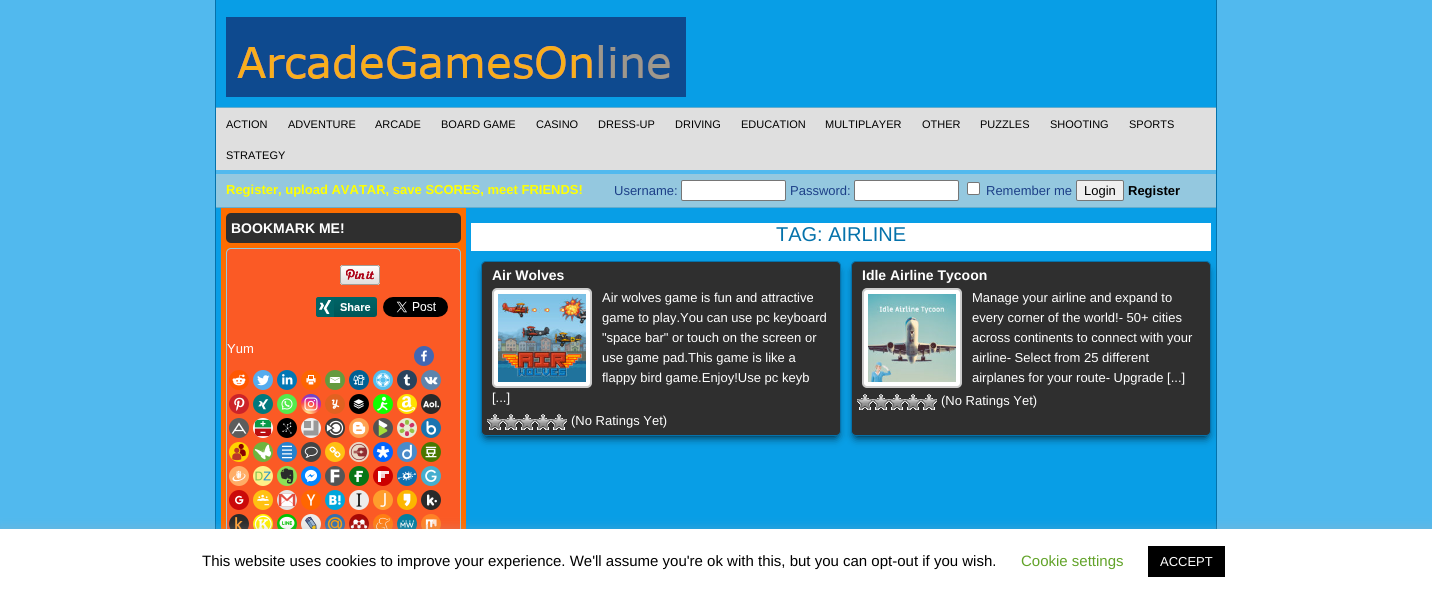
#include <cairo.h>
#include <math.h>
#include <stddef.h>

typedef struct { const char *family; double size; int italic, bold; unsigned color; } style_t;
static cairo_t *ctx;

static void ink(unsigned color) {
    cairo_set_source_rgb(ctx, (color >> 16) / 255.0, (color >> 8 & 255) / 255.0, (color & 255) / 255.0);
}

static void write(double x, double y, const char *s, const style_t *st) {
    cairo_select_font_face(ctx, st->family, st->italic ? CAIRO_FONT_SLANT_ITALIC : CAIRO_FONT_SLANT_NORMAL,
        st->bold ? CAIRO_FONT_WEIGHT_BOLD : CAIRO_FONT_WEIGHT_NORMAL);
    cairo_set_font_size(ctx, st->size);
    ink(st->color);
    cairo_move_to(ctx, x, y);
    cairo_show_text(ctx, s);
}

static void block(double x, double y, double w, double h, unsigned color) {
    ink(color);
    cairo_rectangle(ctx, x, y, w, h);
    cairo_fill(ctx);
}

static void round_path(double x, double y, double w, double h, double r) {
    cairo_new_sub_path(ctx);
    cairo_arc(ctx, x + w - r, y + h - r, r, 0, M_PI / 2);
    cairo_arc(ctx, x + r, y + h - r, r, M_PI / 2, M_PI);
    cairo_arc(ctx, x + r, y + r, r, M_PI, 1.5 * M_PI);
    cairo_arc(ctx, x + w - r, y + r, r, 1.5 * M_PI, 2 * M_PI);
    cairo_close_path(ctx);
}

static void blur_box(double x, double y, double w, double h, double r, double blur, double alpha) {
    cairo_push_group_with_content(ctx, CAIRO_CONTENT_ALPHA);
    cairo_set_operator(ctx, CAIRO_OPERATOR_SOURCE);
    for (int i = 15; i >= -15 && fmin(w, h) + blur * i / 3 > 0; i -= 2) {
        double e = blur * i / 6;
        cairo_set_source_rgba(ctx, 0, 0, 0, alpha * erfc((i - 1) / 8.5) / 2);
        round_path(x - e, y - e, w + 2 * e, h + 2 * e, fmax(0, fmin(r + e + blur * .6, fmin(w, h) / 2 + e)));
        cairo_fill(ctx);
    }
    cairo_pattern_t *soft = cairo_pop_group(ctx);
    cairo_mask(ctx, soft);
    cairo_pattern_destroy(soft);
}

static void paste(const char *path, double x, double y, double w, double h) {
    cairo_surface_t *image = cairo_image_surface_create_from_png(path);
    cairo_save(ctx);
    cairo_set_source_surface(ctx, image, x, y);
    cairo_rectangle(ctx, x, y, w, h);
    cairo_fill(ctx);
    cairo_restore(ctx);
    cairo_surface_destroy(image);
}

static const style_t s1 = {"Liberation Sans", 11, 0, 0, 0x000000};
static const style_t s2 = {"Liberation Sans", 13, 0, 1, 0xffff00};
static const style_t s3 = {"Liberation Sans", 13, 0, 0, 0x1d4088};
static const style_t s4 = {"Liberation Sans", 13, 0, 0, 0x000000};
static const style_t s5 = {"Liberation Sans", 13, 0, 1, 0x000000};
static const style_t s6 = {"Liberation Sans", 14, 0, 1, 0xffffff};
static const style_t s7 = {"Liberation Sans", 13, 0, 0, 0xffffff};
static const style_t s8 = {"Liberation Sans", 20, 0, 0, 0x0572ab};
static const style_t s9 = {"Liberation Sans", 15, 0, 0, 0x000000};
static const style_t s10 = {"Liberation Sans", 15, 0, 0, 0x62a329};

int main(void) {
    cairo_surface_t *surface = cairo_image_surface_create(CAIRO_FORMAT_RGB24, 1432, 594);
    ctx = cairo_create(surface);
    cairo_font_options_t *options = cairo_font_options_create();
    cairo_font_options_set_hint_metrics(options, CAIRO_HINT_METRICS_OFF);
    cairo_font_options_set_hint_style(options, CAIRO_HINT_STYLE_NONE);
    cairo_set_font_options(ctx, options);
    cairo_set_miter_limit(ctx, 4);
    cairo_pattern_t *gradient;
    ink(0x51b9ee);
    cairo_paint(ctx);
    block(1216, 0, 1, 529, 0x0572ab);
    block(215, 0, 1, 529, 0x0572ab);
    block(216, 0, 1000, 107, 0x089ee6);
    paste("pic1.png", 226, 17, 460, 80);
    block(216, 107, 1000, 1, 0x64adce);
    block(216, 108, 1000, 62, 0xdfdfdf);
    write(226, 128, "ACTION", &s1);
    write(288, 128, "ADVENTURE", &s1);
    write(375, 128, "ARCADE", &s1);
    write(441, 128, "BOARD GAME", &s1);
    write(536, 128, "CASINO", &s1);
    write(598, 128, "DRESS-UP", &s1);
    write(675, 128, "DRIVING", &s1);
    write(741, 128, "EDUCATION", &s1);
    write(825, 128, "MULTIPLAYER", &s1);
    write(922, 128, "OTHER", &s1);
    write(980, 128, "PUZZLES", &s1);
    write(1050, 128, "SHOOTING", &s1);
    write(1129, 128, "SPORTS", &s1);
    write(226, 159, "STRATEGY", &s1);
    block(216, 208, 1000, 321, 0x089ee6);
    block(216, 174, 1000, 33, 0x94c8df);
    block(216, 207, 1000, 1, 0x64adce);
    write(226, 194, "Register, upload AVATAR, save SCORES, meet FRIENDS!", &s2);
    write(614, 195, "Username:", &s3);
    ink(0xffffff);
    round_path(681.5, 180.5, 104, 20, 1.5);
    cairo_fill_preserve(ctx);
    ink(0x767676);
    cairo_set_line_width(ctx, 1);
    cairo_stroke(ctx);
    write(790, 195, "Password:", &s3);
    ink(0xffffff);
    round_path(854.5, 180.5, 104, 20, 1.5);
    cairo_fill_preserve(ctx);
    ink(0x767676);
    cairo_stroke(ctx);
    ink(0xffffff);
    round_path(967.5, 182.5, 12, 12, 1.5);
    cairo_fill_preserve(ctx);
    ink(0x767676);
    cairo_stroke(ctx);
    write(986, 195, "Remember me", &s3);
    ink(0xefefef);
    round_path(1076.5, 180.5, 47, 20, 1.5);
    cairo_fill_preserve(ctx);
    ink(0x767676);
    cairo_stroke(ctx);
    write(1084, 195, "Login", &s4);
    write(1128, 195, "Register", &s5);
    block(221, 208, 245, 321, 0xfc6d00);
    ink(0x2f2f2f);
    round_path(226, 213, 235, 30, 5);
    cairo_fill(ctx);
    write(231, 233, "BOOKMARK ME!", &s6);
    ink(0xfb5a25);
    round_path(226.5, 248.5, 234, 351, 4.5);
    cairo_fill_preserve(ctx);
    ink(0x94c8df);
    cairo_stroke(ctx);
    paste("pic2.png", 340, 265, 40, 20);
    paste("pic3.png", 316, 297, 61, 20);
    paste("pic4.png", 383, 297, 65, 20);
    write(227, 353, "Yum", &s7);
    ink(0x4267b2);
    cairo_new_path(ctx);
    cairo_arc(ctx, 424, 356, 10, 0, 2 * M_PI);
    cairo_fill(ctx);
    paste("pic5.png", 421, 350, 6, 12);
    ink(0xff5700);
    cairo_arc(ctx, 239, 380, 10, 0, 2 * M_PI);
    cairo_fill(ctx);
    paste("pic6.png", 232, 374, 14, 12);
    ink(0x55acee);
    cairo_arc(ctx, 263, 380, 10, 0, 2 * M_PI);
    cairo_fill(ctx);
    paste("pic7.png", 257, 375, 13, 11);
    ink(0x0077b5);
    cairo_arc(ctx, 287, 380, 10, 0, 2 * M_PI);
    cairo_fill(ctx);
    paste("pic8.png", 282, 374, 11, 11);
    ink(0xfd6500);
    cairo_arc(ctx, 311, 380, 10, 0, 2 * M_PI);
    cairo_fill(ctx);
    paste("pic9.png", 306, 375, 10, 10);
    ink(0x649a3f);
    cairo_arc(ctx, 335, 380, 10, 0, 2 * M_PI);
    cairo_fill(ctx);
    paste("pic10.png", 329, 377, 12, 6);
    ink(0x006094);
    cairo_arc(ctx, 359, 380, 10, 0, 2 * M_PI);
    cairo_fill(ctx);
    paste("pic11.png", 353, 374, 12, 11);
    ink(0x53beee);
    cairo_arc(ctx, 383, 380, 10, 0, 2 * M_PI);
    cairo_fill(ctx);
    paste("pic12.png", 376, 373, 14, 14);
    ink(0x29435d);
    cairo_arc(ctx, 407, 380, 10, 0, 2 * M_PI);
    cairo_fill(ctx);
    paste("pic13.png", 403, 374, 8, 12);
    ink(0x5e84ac);
    cairo_arc(ctx, 431, 380, 10, 0, 2 * M_PI);
    cairo_fill(ctx);
    paste("pic14.png", 424, 376, 14, 9);
    ink(0xcc2329);
    cairo_arc(ctx, 239, 404, 10, 0, 2 * M_PI);
    cairo_fill(ctx);
    paste("pic15.png", 234, 397, 11, 14);
    ink(0x00797d);
    cairo_arc(ctx, 263, 404, 10, 0, 2 * M_PI);
    cairo_fill(ctx);
    paste("pic16.png", 258, 399, 11, 11);
    ink(0x55eb4c);
    cairo_arc(ctx, 287, 404, 10, 0, 2 * M_PI);
    cairo_fill(ctx);
    paste("pic17.png", 281, 398, 12, 12);
    gradient = cairo_pattern_create_radial(307, 415, 0, 307, 415, 26);
    cairo_pattern_add_color_stop_rgba(gradient, 0, 0.992, 0.957, 0.592, 1);
    cairo_pattern_add_color_stop_rgba(gradient, 0.05, 0.992, 0.957, 0.592, 1);
    cairo_pattern_add_color_stop_rgba(gradient, 0.45, 0.992, 0.349, 0.286, 1);
    cairo_pattern_add_color_stop_rgba(gradient, 0.6, 0.839, 0.141, 0.624, 1);
    cairo_pattern_add_color_stop_rgba(gradient, 0.9, 0.157, 0.353, 0.922, 1);
    cairo_set_source(ctx, gradient);
    cairo_pattern_destroy(gradient);
    cairo_arc(ctx, 311, 404, 10, 0, 2 * M_PI);
    cairo_fill(ctx);
    paste("pic18.png", 304, 397, 14, 14);
    ink(0xe16120);
    cairo_arc(ctx, 335, 404, 10, 0, 2 * M_PI);
    cairo_fill(ctx);
    paste("pic19.png", 331, 399, 9, 10);
    ink(0x000000);
    cairo_arc(ctx, 359, 404, 10, 0, 2 * M_PI);
    cairo_fill(ctx);
    paste("pic20.png", 353, 399, 11, 10);
    ink(0x10ff00);
    cairo_arc(ctx, 383, 404, 10, 0, 2 * M_PI);
    cairo_fill(ctx);
    paste("pic21.png", 377, 396, 11, 15);
    ink(0xffe000);
    cairo_arc(ctx, 407, 404, 10, 0, 2 * M_PI);
    cairo_fill(ctx);
    paste("pic22.png", 399, 396, 16, 16);
    ink(0x2a2a2a);
    cairo_arc(ctx, 431, 404, 10, 0, 2 * M_PI);
    cairo_fill(ctx);
    paste("pic23.png", 423, 400, 16, 8);
    ink(0x5d5d5d);
    cairo_arc(ctx, 239, 428, 10, 0, 2 * M_PI);
    cairo_fill(ctx);
    paste("pic24.png", 231, 422, 16, 12);
    ink(0xffffff);
    cairo_arc(ctx, 263, 428, 10, 0, 2 * M_PI);
    cairo_fill(ctx);
    paste("pic25.png", 254, 419, 18, 18);
    ink(0x000000);
    cairo_arc(ctx, 287, 428, 10, 0, 2 * M_PI);
    cairo_fill(ctx);
    paste("pic26.png", 282, 422, 10, 12);
    ink(0xefefef);
    cairo_arc(ctx, 311, 428, 10, 0, 2 * M_PI);
    cairo_fill(ctx);
    paste("pic27.png", 303, 420, 16, 16);
    ink(0x3d3c3b);
    cairo_arc(ctx, 335, 428, 10, 0, 2 * M_PI);
    cairo_fill(ctx);
    paste("pic28.png", 326, 420, 18, 16);
    ink(0xfda352);
    cairo_arc(ctx, 359, 428, 10, 0, 2 * M_PI);
    cairo_fill(ctx);
    paste("pic29.png", 352, 421, 14, 14);
    ink(0x535353);
    cairo_arc(ctx, 383, 428, 10, 0, 2 * M_PI);
    cairo_fill(ctx);
    paste("pic30.png", 378, 420, 10, 16);
    ink(0xe8ead4);
    cairo_arc(ctx, 407, 428, 10, 0, 2 * M_PI);
    cairo_fill(ctx);
    paste("pic31.png", 399, 419, 16, 18);
    ink(0x1a74b0);
    cairo_arc(ctx, 431, 428, 10, 0, 2 * M_PI);
    cairo_fill(ctx);
    paste("pic32.png", 426, 421, 11, 14);
    ink(0xffd400);
    cairo_arc(ctx, 239, 452, 10, 0, 2 * M_PI);
    cairo_fill(ctx);
    paste("pic33.png", 232, 443, 14, 18);
    ink(0x6eb43f);
    cairo_arc(ctx, 263, 452, 10, 0, 2 * M_PI);
    cairo_fill(ctx);
    paste("pic34.png", 254, 444, 18, 16);
    ink(0x2781cd);
    cairo_arc(ctx, 287, 452, 10, 0, 2 * M_PI);
    cairo_fill(ctx);
    paste("pic35.png", 282, 445, 10, 14);
    ink(0x444444);
    cairo_arc(ctx, 311, 452, 10, 0, 2 * M_PI);
    cairo_fill(ctx);
    paste("pic36.png", 304, 446, 14, 12);
    ink(0xffc112);
    cairo_arc(ctx, 335, 452, 10, 0, 2 * M_PI);
    cairo_fill(ctx);
    paste("pic37.png", 329, 446, 12, 12);
    ink(0xe8d8c6);
    cairo_arc(ctx, 359, 452, 10, 0, 2 * M_PI);
    cairo_fill(ctx);
    paste("pic38.png", 350, 443, 18, 18);
    ink(0x0166ff);
    cairo_arc(ctx, 383, 452, 10, 0, 2 * M_PI);
    cairo_fill(ctx);
    paste("pic39.png", 376, 446, 14, 12);
    ink(0x4a8bca);
    cairo_arc(ctx, 407, 452, 10, 0, 2 * M_PI);
    cairo_fill(ctx);
    paste("pic40.png", 402, 444, 10, 16);
    ink(0x497700);
    cairo_arc(ctx, 431, 452, 10, 0, 2 * M_PI);
    cairo_fill(ctx);
    paste("pic41.png", 425, 446, 12, 12);
    ink(0xffad66);
    cairo_arc(ctx, 239, 476, 10, 0, 2 * M_PI);
    cairo_fill(ctx);
    paste("pic42.png", 232, 470, 14, 12);
    ink(0xfff088);
    cairo_arc(ctx, 263, 476, 10, 0, 2 * M_PI);
    cairo_fill(ctx);
    paste("pic43.png", 255, 471, 16, 10);
    ink(0x8be056);
    cairo_arc(ctx, 287, 476, 10, 0, 2 * M_PI);
    cairo_fill(ctx);
    paste("pic44.png", 280, 468, 14, 16);
    ink(0x0084ff);
    cairo_arc(ctx, 311, 476, 10, 0, 2 * M_PI);
    cairo_fill(ctx);
    paste("pic45.png", 304, 469, 14, 13);
    ink(0x555555);
    cairo_arc(ctx, 335, 476, 10, 0, 2 * M_PI);
    cairo_fill(ctx);
    paste("pic46.png", 330, 469, 10, 14);
    ink(0x087515);
    cairo_arc(ctx, 359, 476, 10, 0, 2 * M_PI);
    cairo_fill(ctx);
    paste("pic47.png", 354, 470, 9, 12);
    ink(0xcc0000);
    cairo_arc(ctx, 383, 476, 10, 0, 2 * M_PI);
    cairo_fill(ctx);
    block(378, 474, 7, 4, 0xf5cccc);
    block(378, 471, 11, 3, 0xfae5e5);
    block(378, 471, 3, 11, 0xffffff);
    ink(0x0f70b2);
    cairo_arc(ctx, 407, 476, 10, 0, 2 * M_PI);
    cairo_fill(ctx);
    paste("pic48.png", 398, 471, 18, 10);
    ink(0x46aecf);
    cairo_arc(ctx, 431, 476, 10, 0, 2 * M_PI);
    cairo_fill(ctx);
    paste("pic49.png", 425, 469, 12, 13);
    ink(0xcb0909);
    cairo_arc(ctx, 239, 500, 10, 0, 2 * M_PI);
    cairo_fill(ctx);
    paste("pic50.png", 235, 495, 9, 10);
    ink(0xffc112);
    cairo_arc(ctx, 263, 500, 10, 0, 2 * M_PI);
    cairo_fill(ctx);
    paste("pic51.png", 257, 494, 12, 12);
    ink(0xe5e5e5);
    cairo_arc(ctx, 287, 500, 10, 0, 2 * M_PI);
    cairo_fill(ctx);
    paste("pic52.png", 278, 493, 18, 14);
    ink(0xff6600);
    cairo_arc(ctx, 311, 500, 10, 0, 2 * M_PI);
    cairo_fill(ctx);
    paste("pic53.png", 306, 494, 10, 12);
    ink(0x00a6db);
    cairo_arc(ctx, 335, 500, 10, 0, 2 * M_PI);
    cairo_fill(ctx);
    paste("pic54.png", 329, 495, 12, 10);
    ink(0xededed);
    cairo_arc(ctx, 359, 500, 10, 0, 2 * M_PI);
    cairo_fill(ctx);
    paste("pic55.png", 356, 493, 6, 14);
    ink(0xff9e2c);
    cairo_arc(ctx, 383, 500, 10, 0, 2 * M_PI);
    cairo_fill(ctx);
    paste("pic56.png", 380, 493, 6, 14);
    ink(0xfcb700);
    cairo_arc(ctx, 407, 500, 10, 0, 2 * M_PI);
    cairo_fill(ctx);
    paste("pic57.png", 403, 493, 8, 14);
    ink(0x2a2a2a);
    cairo_arc(ctx, 431, 500, 10, 0, 2 * M_PI);
    cairo_fill(ctx);
    paste("pic58.png", 427, 494, 10, 12);
    cairo_arc(ctx, 239, 524, 10, 0, 2 * M_PI);
    cairo_fill(ctx);
    paste("pic59.png", 235, 517, 8, 12);
    ink(0xfff101);
    cairo_arc(ctx, 263, 524, 10, 0, 2 * M_PI);
    cairo_fill(ctx);
    paste("pic60.png", 254, 515, 18, 14);
    ink(0x00c300);
    cairo_arc(ctx, 287, 524, 10, 0, 2 * M_PI);
    cairo_fill(ctx);
    paste("pic61.png", 279, 516, 16, 13);
    ink(0xededed);
    cairo_arc(ctx, 311, 524, 10, 0, 2 * M_PI);
    cairo_fill(ctx);
    paste("pic62.png", 305, 516, 12, 13);
    ink(0x356fac);
    cairo_arc(ctx, 335, 524, 10, 0, 2 * M_PI);
    cairo_fill(ctx);
    paste("pic63.png", 327, 517, 16, 12);
    ink(0xa70805);
    cairo_arc(ctx, 359, 524, 10, 0, 2 * M_PI);
    cairo_fill(ctx);
    paste("pic64.png", 350, 519, 18, 10);
    ink(0xff7d12);
    cairo_arc(ctx, 383, 524, 10, 0, 2 * M_PI);
    cairo_fill(ctx);
    paste("pic65.png", 376, 517, 14, 12);
    ink(0x007da1);
    cairo_arc(ctx, 407, 524, 10, 0, 2 * M_PI);
    cairo_fill(ctx);
    paste("pic66.png", 400, 520, 15, 8);
    ink(0xff8226);
    cairo_arc(ctx, 431, 524, 10, 0, 2 * M_PI);
    cairo_fill(ctx);
    paste("pic67.png", 425, 519, 12, 10);
    block(471, 223, 740, 28, 0xffffff);
    write(776, 241, "TAG: AIRLINE", &s8);
    ink(0x000000);
    blur_box(486, 271, 350, 165, 0, 5, 1);
    ink(0x2f2f2f);
    round_path(481.5, 261.5, 359, 174, 4.5);
    cairo_fill_preserve(ctx);
    ink(0x0572ab);
    cairo_stroke(ctx);
    write(492, 280, "Air Wolves", &s6);
    round_path(493, 289, 98, 98, 4);
    cairo_fill_preserve(ctx);
    ink(0xcccccc);
    cairo_set_line_width(ctx, 2);
    cairo_stroke(ctx);
    paste("pic68.png", 498, 294, 88, 88);
    write(602, 302, "Air wolves game is fun and attractive", &s7);
    write(602, 322, "game to play.You can use pc keyboard", &s7);
    write(602, 342, "\"space bar\" or touch on the screen or", &s7);
    write(602, 362, "use game pad.This game is like a", &s7);
    write(602, 382, "flappy bird game.Enjoy!Use pc keyb", &s7);
    write(492, 402, "[...]", &s7);
    paste("pic69.png", 487, 414, 16, 16);
    paste("pic69.png", 503, 414, 16, 16);
    paste("pic69.png", 519, 414, 16, 16);
    paste("pic69.png", 535, 414, 16, 16);
    paste("pic69.png", 551, 414, 16, 16);
    write(571, 425, "(No Ratings Yet)", &s7);
    ink(0x000000);
    blur_box(856, 271, 350, 165, 0, 5, 1);
    ink(0x2f2f2f);
    round_path(851.5, 261.5, 359, 174, 4.5);
    cairo_fill_preserve(ctx);
    ink(0x0572ab);
    cairo_set_line_width(ctx, 1);
    cairo_stroke(ctx);
    write(862, 280, "Idle Airline Tycoon", &s6);
    round_path(863, 289, 98, 98, 4);
    cairo_fill_preserve(ctx);
    ink(0xcccccc);
    cairo_set_line_width(ctx, 2);
    cairo_stroke(ctx);
    paste("pic70.png", 868, 294, 88, 88);
    write(972, 302, "Manage your airline and expand to", &s7);
    write(972, 322, "every corner of the world!- 50+ cities", &s7);
    write(972, 342, "across continents to connect with your", &s7);
    write(972, 362, "airline- Select from 25 different", &s7);
    write(972, 382, "airplanes for your route- Upgrade [...]", &s7);
    paste("pic69.png", 857, 394, 16, 16);
    paste("pic69.png", 873, 394, 16, 16);
    paste("pic69.png", 889, 394, 16, 16);
    paste("pic69.png", 905, 394, 16, 16);
    paste("pic69.png", 921, 394, 16, 16);
    write(941, 405, "(No Ratings Yet)", &s7);
    ink(0xacabab);
    blur_box(0, 528, 1432, 65, 0, 5, 0.3);
    block(0, 529, 1432, 65, 0xffffff);
    write(202, 566, "This website uses cookies to improve your experience. We'll assume you're ok with this, but you can opt-out if you wish.", &s9);
    write(1021, 566, "Cookie settings", &s10);
    block(1148, 546, 77, 31, 0x000000);
    write(1160, 566, "ACCEPT", &s7);
    cairo_surface_write_to_png(surface, "screenshot.png");
    cairo_font_options_destroy(options);
    cairo_destroy(ctx);
    cairo_surface_destroy(surface);
    return 0;
}
